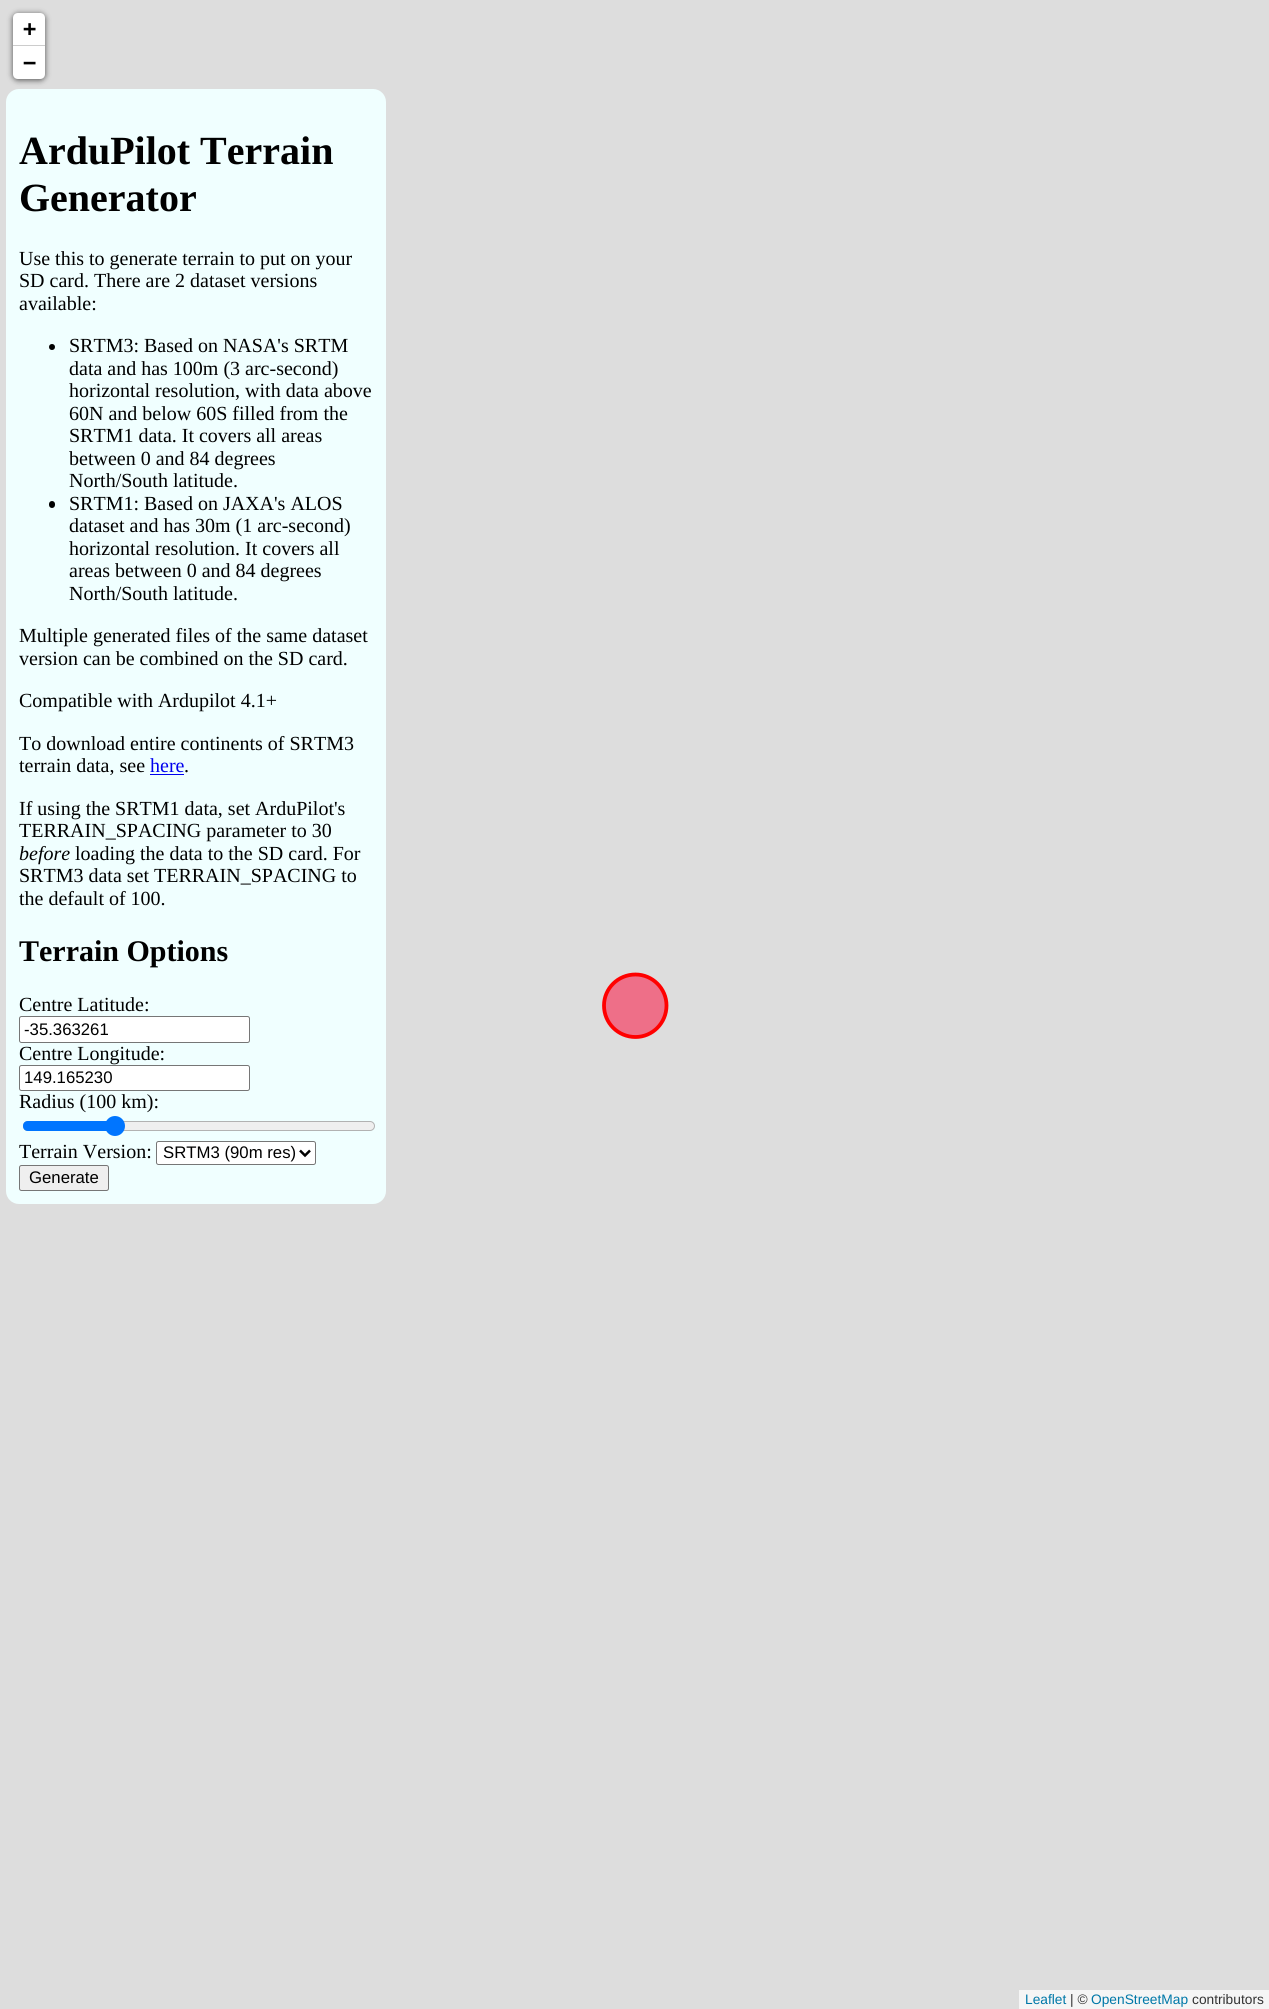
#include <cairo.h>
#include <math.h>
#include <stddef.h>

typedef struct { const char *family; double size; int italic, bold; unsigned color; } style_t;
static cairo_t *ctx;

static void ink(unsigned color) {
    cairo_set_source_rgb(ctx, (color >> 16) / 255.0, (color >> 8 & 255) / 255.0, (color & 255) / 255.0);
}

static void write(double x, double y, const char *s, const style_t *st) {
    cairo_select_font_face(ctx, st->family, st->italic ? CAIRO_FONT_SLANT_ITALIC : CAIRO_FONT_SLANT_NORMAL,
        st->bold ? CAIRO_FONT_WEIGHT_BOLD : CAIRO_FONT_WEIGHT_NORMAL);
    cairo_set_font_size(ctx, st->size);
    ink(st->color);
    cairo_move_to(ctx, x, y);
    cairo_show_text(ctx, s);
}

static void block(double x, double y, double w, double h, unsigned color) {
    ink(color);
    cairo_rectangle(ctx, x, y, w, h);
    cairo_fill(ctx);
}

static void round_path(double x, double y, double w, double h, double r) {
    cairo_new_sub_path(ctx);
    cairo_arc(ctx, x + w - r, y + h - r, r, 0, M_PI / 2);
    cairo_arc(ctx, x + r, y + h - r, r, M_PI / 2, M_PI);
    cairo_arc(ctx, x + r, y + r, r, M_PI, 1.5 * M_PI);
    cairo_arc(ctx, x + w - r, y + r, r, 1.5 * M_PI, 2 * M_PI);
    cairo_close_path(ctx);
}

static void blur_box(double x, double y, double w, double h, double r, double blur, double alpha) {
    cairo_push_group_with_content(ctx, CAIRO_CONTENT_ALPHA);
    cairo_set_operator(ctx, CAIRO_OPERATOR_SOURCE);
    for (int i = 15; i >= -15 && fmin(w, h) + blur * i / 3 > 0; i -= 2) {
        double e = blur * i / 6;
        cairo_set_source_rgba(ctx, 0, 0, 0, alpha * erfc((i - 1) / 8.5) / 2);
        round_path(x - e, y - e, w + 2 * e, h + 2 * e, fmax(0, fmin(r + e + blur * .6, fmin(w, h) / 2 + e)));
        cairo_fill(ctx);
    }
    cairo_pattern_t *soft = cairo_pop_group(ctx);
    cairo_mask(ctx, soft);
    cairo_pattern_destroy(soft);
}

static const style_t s1 = {"DejaVu Sans Mono", 22, 0, 1, 0x000000};
static const style_t s2 = {"Liberation Sans", 13.75, 0, 0, 0x0078a8};
static const style_t s3 = {"Liberation Sans", 13.75, 0, 0, 0x333333};
static const style_t s4 = {"Liberation Serif", 40, 0, 1, 0x000000};
static const style_t s5 = {"Liberation Serif", 20, 0, 0, 0x000000};
static const style_t s6 = {"Liberation Serif", 20, 0, 0, 0x0000ee};
static const style_t s7 = {"Liberation Serif", 20, 1, 0, 0x000000};
static const style_t s8 = {"Liberation Serif", 30, 0, 1, 0x000000};
static const style_t s9 = {"Liberation Sans", 16.75, 0, 0, 0x000000};

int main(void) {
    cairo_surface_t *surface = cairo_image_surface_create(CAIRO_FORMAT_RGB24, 1269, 2009);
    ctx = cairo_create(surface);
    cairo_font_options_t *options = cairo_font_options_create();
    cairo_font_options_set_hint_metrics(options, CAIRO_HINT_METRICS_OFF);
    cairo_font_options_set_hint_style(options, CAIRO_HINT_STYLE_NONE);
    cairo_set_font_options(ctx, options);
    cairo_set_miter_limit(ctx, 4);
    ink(0xdddddd);
    cairo_paint(ctx);
    ink(0x000000);
    blur_box(13, 14, 32, 66, 5, 3, 0.65);
    ink(0xffffff);
    cairo_new_path(ctx);
    cairo_move_to(ctx, 18, 13);
    cairo_line_to(ctx, 40, 13);
    cairo_curve_to(ctx, 43, 13, 45, 15, 45, 18);
    cairo_line_to(ctx, 45, 46);
    cairo_line_to(ctx, 13, 46);
    cairo_line_to(ctx, 13, 18);
    cairo_curve_to(ctx, 13, 15, 15, 13, 18, 13);
    cairo_close_path(ctx);
    cairo_fill(ctx);
    block(13, 45, 32, 1, 0xcccccc);
    write(23, 36, "+", &s1);
    ink(0xffffff);
    cairo_new_path(ctx);
    cairo_move_to(ctx, 13, 46);
    cairo_line_to(ctx, 45, 46);
    cairo_line_to(ctx, 45, 74);
    cairo_curve_to(ctx, 45, 77, 43, 79, 40, 79);
    cairo_line_to(ctx, 18, 79);
    cairo_curve_to(ctx, 15, 79, 13, 77, 13, 74);
    cairo_close_path(ctx);
    cairo_fill(ctx);
    write(23, 70, "−", &s1);
    block(1019, 1990, 250, 19, 0xf5f5f5);
    write(1025, 2004, "Leaflet", &s2);
    write(1070, 2004, "| ©", &s3);
    write(1091, 2004, "OpenStreetMap", &s2);
    write(1192, 2004, "contributors", &s3);
    ink(0xee6f88);
    cairo_set_fill_rule(ctx, CAIRO_FILL_RULE_EVEN_ODD);
    cairo_new_path(ctx);
    cairo_move_to(ctx, 604, 1006);
    cairo_curve_to(ctx, 604, 1023, 618, 1037, 635, 1037);
    cairo_curve_to(ctx, 653, 1037, 667, 1023, 667, 1006);
    cairo_curve_to(ctx, 667, 988, 653, 974, 635, 974);
    cairo_curve_to(ctx, 618, 974, 604, 988, 604, 1006);
    cairo_fill(ctx);
    cairo_new_path(ctx);
    cairo_move_to(ctx, 604, 1005.5);
    cairo_curve_to(ctx, 604, 1023, 618, 1037, 635.5, 1037);
    cairo_curve_to(ctx, 652.5, 1037, 666.5, 1023, 666.5, 1005.5);
    cairo_curve_to(ctx, 666.5, 988.5, 652.5, 974.5, 635.5, 974.5);
    cairo_curve_to(ctx, 618, 974.5, 604, 988.5, 604, 1005.5);
    ink(0xff0000);
    cairo_set_line_width(ctx, 3.8);
    cairo_set_line_cap(ctx, CAIRO_LINE_CAP_ROUND);
    cairo_set_line_join(ctx, CAIRO_LINE_JOIN_ROUND);
    cairo_stroke(ctx);
    ink(0xf0ffff);
    round_path(6, 89, 380, 1115, 13);
    cairo_fill(ctx);
    write(19, 164, "ArduPilot Terrain", &s4);
    write(19, 211, "Generator", &s4);
    write(19, 265, "Use this to generate terrain to put on your", &s5);
    write(19, 287, "SD card. There are 2 dataset versions", &s5);
    write(19, 310, "available:", &s5);
    cairo_new_path(ctx);
    cairo_arc(ctx, 52, 347, 3, 0, 2 * M_PI);
    cairo_fill(ctx);
    write(69, 352, "SRTM3: Based on NASA's SRTM", &s5);
    write(69, 375, "data and has 100m (3 arc-second)", &s5);
    write(69, 397, "horizontal resolution, with data above", &s5);
    write(69, 420, "60N and below 60S filled from the", &s5);
    write(69, 442, "SRTM1 data. It covers all areas", &s5);
    write(69, 465, "between 0 and 84 degrees", &s5);
    write(69, 487, "North/South latitude.", &s5);
    round_path(49, 501, 6, 7, 3);
    cairo_fill(ctx);
    write(69, 510, "SRTM1: Based on JAXA's ALOS", &s5);
    write(69, 532, "dataset and has 30m (1 arc-second)", &s5);
    write(69, 555, "horizontal resolution. It covers all", &s5);
    write(69, 577, "areas between 0 and 84 degrees", &s5);
    write(69, 600, "North/South latitude.", &s5);
    write(19, 642, "Multiple generated files of the same dataset", &s5);
    write(19, 665, "version can be combined on the SD card.", &s5);
    write(19, 707, "Compatible with Ardupilot 4.1+", &s5);
    write(19, 750, "To download entire continents of SRTM3", &s5);
    write(19, 772, "terrain data, see", &s5);
    write(150, 772, "here", &s6);
    block(150, 774, 34, 1, 0x0000ee);
    write(184, 772, ".", &s5);
    write(19, 815, "If using the SRTM1 data, set ArduPilot's", &s5);
    write(19, 837, "TERRAIN_SPACING parameter to 30", &s5);
    write(19, 860, "before", &s7);
    write(75, 860, "loading the data to the SD card. For", &s5);
    write(19, 882, "SRTM3 data set TERRAIN_SPACING to", &s5);
    write(19, 905, "the default of 100.", &s5);
    write(19, 961, "Terrain Options", &s8);
    write(19, 1011, "Centre Latitude:", &s5);
    ink(0xffffff);
    round_path(19.5, 1016.5, 230, 26, 2);
    cairo_fill_preserve(ctx);
    ink(0x767676);
    cairo_set_line_width(ctx, 1);
    cairo_set_line_cap(ctx, CAIRO_LINE_CAP_BUTT);
    cairo_set_line_join(ctx, CAIRO_LINE_JOIN_MITER);
    cairo_stroke(ctx);
    write(24, 1035, "-35.363261", &s9);
    write(19, 1060, "Centre Longitude:", &s5);
    ink(0xffffff);
    round_path(19.5, 1065.5, 230, 25, 2);
    cairo_fill_preserve(ctx);
    ink(0x767676);
    cairo_stroke(ctx);
    write(24, 1083, "149.165230", &s9);
    write(19, 1108, "Radius (100 km):", &s5);
    ink(0xefefef);
    round_path(23.5, 1121.5, 351, 9, 4.5);
    cairo_fill_preserve(ctx);
    ink(0xb2b2b2);
    cairo_stroke(ctx);
    ink(0x0075ff);
    cairo_new_path(ctx);
    cairo_move_to(ctx, 28, 1121);
    cairo_line_to(ctx, 115, 1121);
    cairo_line_to(ctx, 115, 1131);
    cairo_line_to(ctx, 28, 1131);
    cairo_curve_to(ctx, 25, 1131, 23, 1129, 23, 1126);
    cairo_curve_to(ctx, 23, 1123, 25, 1121, 28, 1121);
    cairo_close_path(ctx);
    cairo_fill(ctx);
    cairo_arc(ctx, 115, 1126, 10, 0, 2 * M_PI);
    cairo_fill(ctx);
    write(19, 1158, "Terrain Version:", &s5);
    ink(0xffffff);
    round_path(156.5, 1141.5, 159, 23, 2);
    cairo_fill_preserve(ctx);
    ink(0x767676);
    cairo_stroke(ctx);
    cairo_new_path(ctx);
    cairo_move_to(ctx, 300, 1150.5);
    cairo_line_to(ctx, 305, 1155.5);
    cairo_line_to(ctx, 310, 1150.5);
    ink(0x000000);
    cairo_set_line_width(ctx, 2.5);
    cairo_stroke(ctx);
    write(163, 1158, "SRTM3 (90m res)", &s9);
    ink(0xefefef);
    round_path(19.5, 1165.5, 89, 25, 2);
    cairo_fill_preserve(ctx);
    ink(0x767676);
    cairo_set_line_width(ctx, 1);
    cairo_stroke(ctx);
    write(29, 1183, "Generate", &s9);
    cairo_surface_write_to_png(surface, "screenshot.png");
    cairo_font_options_destroy(options);
    cairo_destroy(ctx);
    cairo_surface_destroy(surface);
    return 0;
}
